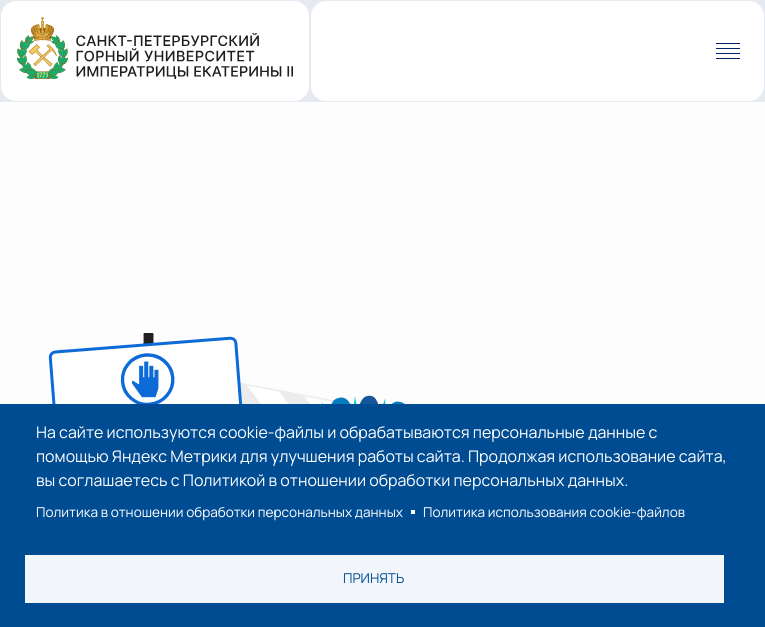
#include <cairo.h>
#include <math.h>
#include <stddef.h>

typedef struct { const char *family; double size; int italic, bold; unsigned color; } style_t;
static cairo_t *ctx;

static void ink(unsigned color) {
    cairo_set_source_rgb(ctx, (color >> 16) / 255.0, (color >> 8 & 255) / 255.0, (color & 255) / 255.0);
}

static void write(double x, double y, const char *s, const style_t *st) {
    cairo_select_font_face(ctx, st->family, st->italic ? CAIRO_FONT_SLANT_ITALIC : CAIRO_FONT_SLANT_NORMAL,
        st->bold ? CAIRO_FONT_WEIGHT_BOLD : CAIRO_FONT_WEIGHT_NORMAL);
    cairo_set_font_size(ctx, st->size);
    ink(st->color);
    cairo_move_to(ctx, x, y);
    cairo_show_text(ctx, s);
}

static void block(double x, double y, double w, double h, unsigned color) {
    ink(color);
    cairo_rectangle(ctx, x, y, w, h);
    cairo_fill(ctx);
}

static void round_path(double x, double y, double w, double h, double r) {
    cairo_new_sub_path(ctx);
    cairo_arc(ctx, x + w - r, y + h - r, r, 0, M_PI / 2);
    cairo_arc(ctx, x + r, y + h - r, r, M_PI / 2, M_PI);
    cairo_arc(ctx, x + r, y + r, r, M_PI, 1.5 * M_PI);
    cairo_arc(ctx, x + w - r, y + r, r, 1.5 * M_PI, 2 * M_PI);
    cairo_close_path(ctx);
}

static void paste(const char *path, double x, double y, double w, double h) {
    cairo_surface_t *image = cairo_image_surface_create_from_png(path);
    cairo_save(ctx);
    cairo_set_source_surface(ctx, image, x, y);
    cairo_rectangle(ctx, x, y, w, h);
    cairo_fill(ctx);
    cairo_restore(ctx);
    cairo_surface_destroy(image);
}

static const style_t s1 = {"Manrope", 16, 0, 0, 0xffffff};
static const style_t s2 = {"Manrope", 13.6, 0, 0, 0xffffff};
static const style_t s3 = {"Manrope", 13.6, 0, 0, 0x004c93};

int main(void) {
    cairo_surface_t *surface = cairo_image_surface_create(CAIRO_FORMAT_RGB24, 765, 627);
    ctx = cairo_create(surface);
    cairo_font_options_t *options = cairo_font_options_create();
    cairo_font_options_set_hint_metrics(options, CAIRO_HINT_METRICS_OFF);
    cairo_font_options_set_hint_style(options, CAIRO_HINT_STYLE_NONE);
    cairo_set_font_options(ctx, options);
    cairo_set_miter_limit(ctx, 4);
    ink(0xfdfdfe);
    cairo_paint(ctx);
    block(0, 0, 765, 102, 0xe5e9f0);
    ink(0xffffff);
    round_path(0.5, 0.5, 309, 101, 15.5);
    cairo_fill_preserve(ctx);
    ink(0xe5e9f0);
    cairo_set_line_width(ctx, 1);
    cairo_stroke(ctx);
    paste("pic1.png", 17, 17, 276, 62);
    ink(0xffffff);
    round_path(310.5, 0.5, 454, 101, 15.5);
    cairo_fill_preserve(ctx);
    ink(0xe5e9f0);
    cairo_stroke(ctx);
    block(716, 43, 24, 1, 0x002366);
    block(716, 48, 24, 1, 0x002366);
    block(716, 53, 24, 1, 0x002366);
    block(716, 58, 24, 1, 0x002366);
    paste("pic2.png", 48, 333, 357, 71);
    block(0, 404, 765, 223, 0x004c93);
    write(36, 438, "На сайте используются cookie-файлы и обрабатываются персональные данные с", &s1);
    write(36, 462, "помощью Яндекс Метрики для улучшения работы сайта. Продолжая использование сайта,", &s1);
    write(36, 486, "вы соглашаетесь с Политикой в отношении обработки персональных данных.", &s1);
    write(36, 517, "Политика в отношении обработки персональных данных", &s2);
    block(411, 510, 4, 4, 0xffffff);
    write(423, 517, "Политика использования cookie-файлов", &s2);
    block(25, 555, 699, 48, 0xf2f6fa);
    write(343, 583, "ПРИНЯТЬ", &s3);
    cairo_surface_write_to_png(surface, "screenshot.png");
    cairo_font_options_destroy(options);
    cairo_destroy(ctx);
    cairo_surface_destroy(surface);
    return 0;
}
